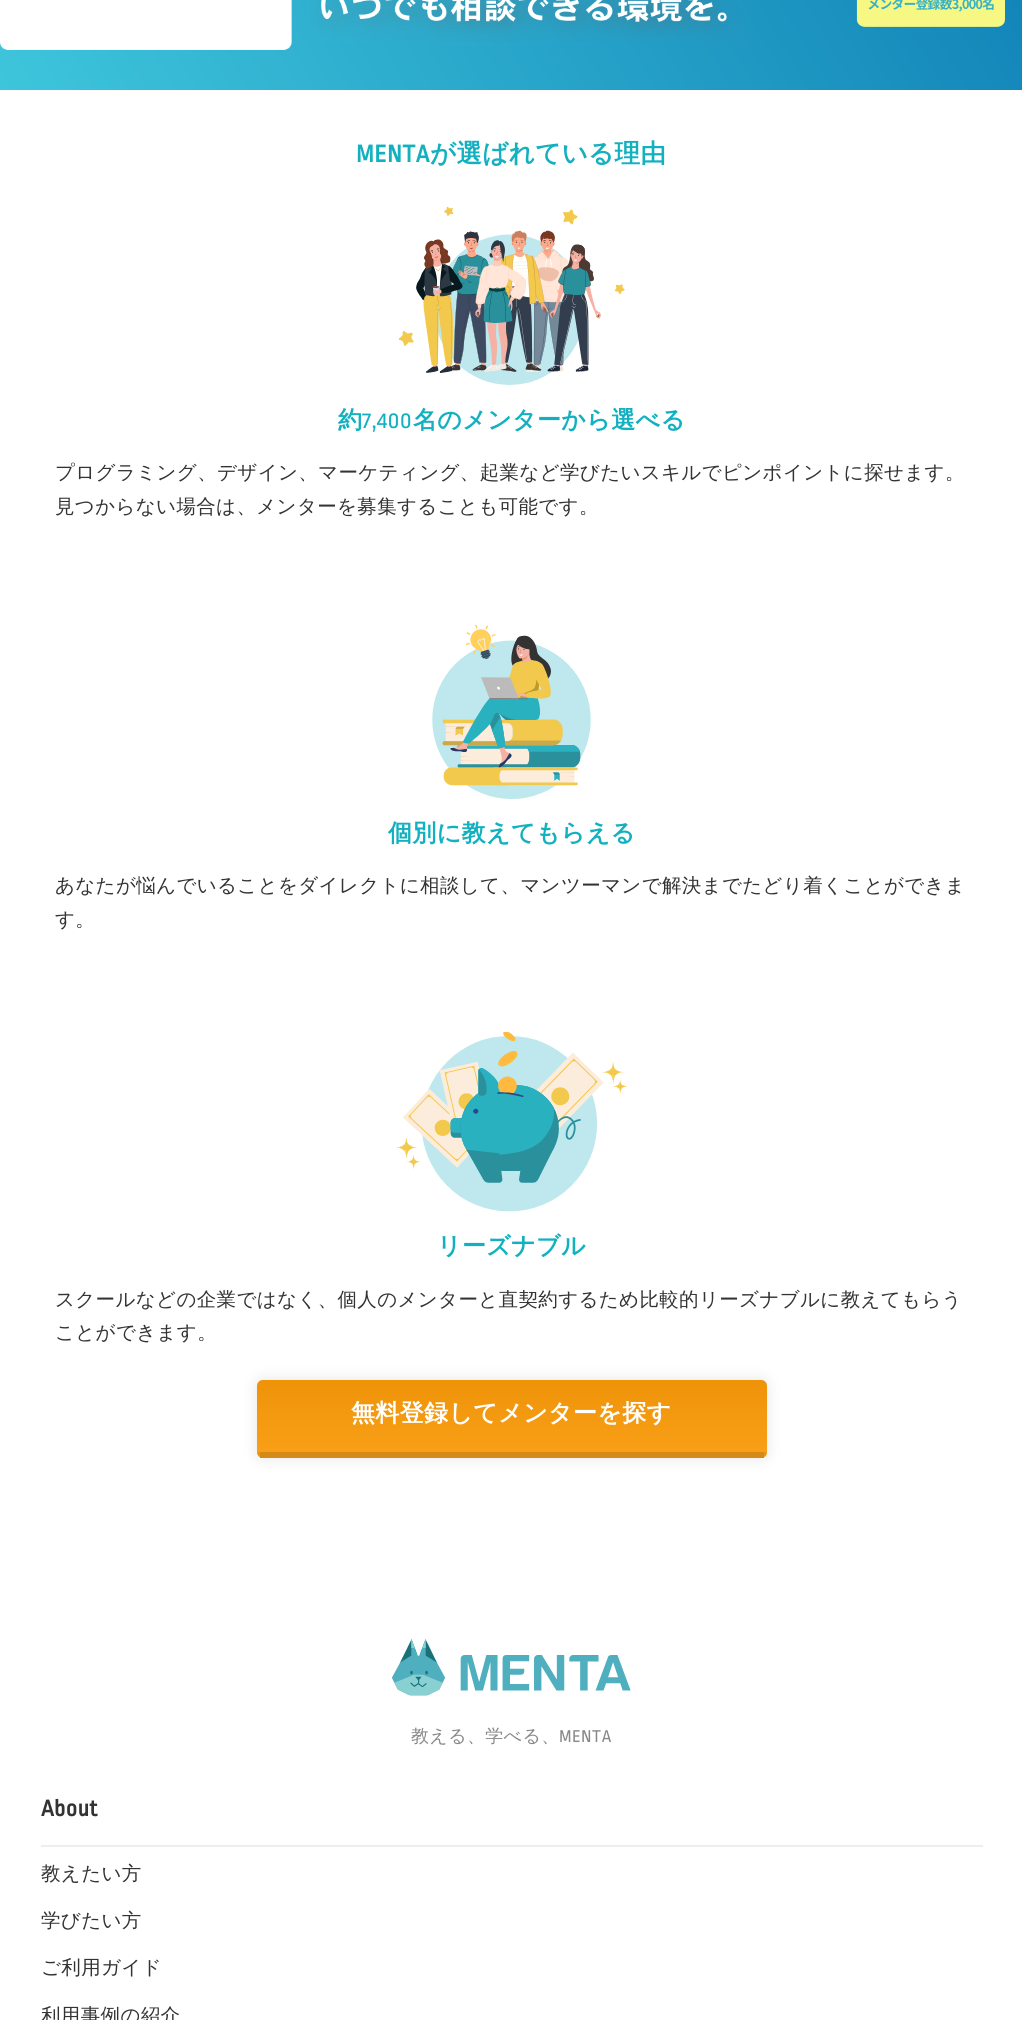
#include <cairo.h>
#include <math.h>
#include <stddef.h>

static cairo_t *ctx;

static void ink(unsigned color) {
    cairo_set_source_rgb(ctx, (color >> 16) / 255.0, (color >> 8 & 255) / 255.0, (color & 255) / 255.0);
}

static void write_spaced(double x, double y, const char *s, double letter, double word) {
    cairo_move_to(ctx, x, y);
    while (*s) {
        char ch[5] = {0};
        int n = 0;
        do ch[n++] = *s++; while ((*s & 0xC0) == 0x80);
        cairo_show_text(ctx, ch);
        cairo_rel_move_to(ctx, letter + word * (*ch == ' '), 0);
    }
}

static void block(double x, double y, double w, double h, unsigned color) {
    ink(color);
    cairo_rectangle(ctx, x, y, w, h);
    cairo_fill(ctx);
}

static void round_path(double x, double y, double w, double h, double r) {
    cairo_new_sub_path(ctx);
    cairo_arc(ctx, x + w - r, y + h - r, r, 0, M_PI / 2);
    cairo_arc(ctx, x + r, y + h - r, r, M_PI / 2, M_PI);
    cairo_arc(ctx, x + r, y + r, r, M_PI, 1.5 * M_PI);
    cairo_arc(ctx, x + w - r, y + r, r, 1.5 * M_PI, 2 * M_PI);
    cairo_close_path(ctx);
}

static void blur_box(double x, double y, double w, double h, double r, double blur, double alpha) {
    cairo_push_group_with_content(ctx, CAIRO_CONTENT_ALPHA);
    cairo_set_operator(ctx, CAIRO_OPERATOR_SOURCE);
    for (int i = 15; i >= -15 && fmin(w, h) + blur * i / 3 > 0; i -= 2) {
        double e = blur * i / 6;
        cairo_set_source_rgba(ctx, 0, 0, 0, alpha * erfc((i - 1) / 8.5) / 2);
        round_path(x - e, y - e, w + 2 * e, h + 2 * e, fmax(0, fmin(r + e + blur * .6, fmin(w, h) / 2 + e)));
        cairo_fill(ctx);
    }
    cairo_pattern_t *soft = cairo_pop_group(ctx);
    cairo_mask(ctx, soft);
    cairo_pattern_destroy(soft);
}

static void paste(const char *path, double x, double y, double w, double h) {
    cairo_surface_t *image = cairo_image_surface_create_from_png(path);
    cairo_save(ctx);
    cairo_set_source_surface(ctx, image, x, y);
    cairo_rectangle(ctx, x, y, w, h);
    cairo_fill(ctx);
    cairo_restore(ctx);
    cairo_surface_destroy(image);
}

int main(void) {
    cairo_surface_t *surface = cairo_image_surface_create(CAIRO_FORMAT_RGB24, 1022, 2020);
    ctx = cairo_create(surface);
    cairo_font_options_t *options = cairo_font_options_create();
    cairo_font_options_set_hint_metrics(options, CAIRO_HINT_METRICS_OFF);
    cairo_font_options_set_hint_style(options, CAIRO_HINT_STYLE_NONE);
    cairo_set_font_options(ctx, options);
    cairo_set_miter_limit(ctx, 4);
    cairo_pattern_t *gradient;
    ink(0xffffff);
    cairo_paint(ctx);
    gradient = cairo_pattern_create_linear(939, -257, 84, 236);
    cairo_pattern_add_color_stop_rgba(gradient, 0, 0.063, 0.51, 0.718, 1);
    cairo_pattern_add_color_stop_rgba(gradient, 1, 0.243, 0.773, 0.859, 1);
    cairo_set_source(ctx, gradient);
    cairo_pattern_destroy(gradient);
    cairo_rectangle(ctx, 0, 0, 1022, 90);
    cairo_fill(ctx);
    paste("pic1.png", 0, 0, 1005, 50);
    cairo_select_font_face(ctx, "Ropa Sans", CAIRO_FONT_SLANT_NORMAL, CAIRO_FONT_WEIGHT_BOLD);
    cairo_set_font_size(ctx, 25.5);
    ink(0x13b1c0);
    write_spaced(356, 162, "MENTA", 0.35, 0);
    cairo_select_font_face(ctx, "WenQuanYi Zen Hei", CAIRO_FONT_SLANT_NORMAL, CAIRO_FONT_WEIGHT_BOLD);
    write_spaced(430, 162, "が選ばれている理由", 0.35, 0);
    paste("pic2.png", 398, 206, 227, 179);
    cairo_set_font_size(ctx, 24);
    write_spaced(338, 428, "約", 0.35, 0);
    cairo_select_font_face(ctx, "Ropa Sans", CAIRO_FONT_SLANT_NORMAL, CAIRO_FONT_WEIGHT_NORMAL);
    write_spaced(362, 428, "7,400", 0.35, 0);
    cairo_select_font_face(ctx, "WenQuanYi Zen Hei", CAIRO_FONT_SLANT_NORMAL, CAIRO_FONT_WEIGHT_BOLD);
    write_spaced(413, 428, "名のメンターから選べる", 0.35, 0);
    cairo_select_font_face(ctx, "WenQuanYi Zen Hei Medium", CAIRO_FONT_SLANT_NORMAL, CAIRO_FONT_WEIGHT_NORMAL);
    cairo_set_font_size(ctx, 19.5);
    ink(0x333333);
    write_spaced(55, 479, "プログラミング、デザイン、マーケティング、起業など学びたいスキルでピンポイントに探せます。", 0.35, 0);
    write_spaced(55, 513, "見つからない場合は、メンターを募集することも可能です。", 0.35, 0);
    paste("pic3.png", 432, 625, 159, 174);
    cairo_select_font_face(ctx, "WenQuanYi Zen Hei", CAIRO_FONT_SLANT_NORMAL, CAIRO_FONT_WEIGHT_BOLD);
    cairo_set_font_size(ctx, 24);
    ink(0x13b1c0);
    write_spaced(388, 841, "個別に教えてもらえる", 0.35, 0);
    cairo_select_font_face(ctx, "WenQuanYi Zen Hei Medium", CAIRO_FONT_SLANT_NORMAL, CAIRO_FONT_WEIGHT_NORMAL);
    cairo_set_font_size(ctx, 19.5);
    ink(0x333333);
    write_spaced(55, 892, "あなたが悩んでいることをダイレクトに相談して、マンツーマンで解決までたどり着くことができま", 0.35, 0);
    write_spaced(55, 926, "す。", 0.35, 0);
    paste("pic4.png", 396, 1032, 231, 180);
    cairo_select_font_face(ctx, "WenQuanYi Zen Hei", CAIRO_FONT_SLANT_NORMAL, CAIRO_FONT_WEIGHT_BOLD);
    cairo_set_font_size(ctx, 24);
    ink(0x13b1c0);
    write_spaced(437, 1254, "リーズナブル", 0.35, 0);
    cairo_select_font_face(ctx, "WenQuanYi Zen Hei Medium", CAIRO_FONT_SLANT_NORMAL, CAIRO_FONT_WEIGHT_NORMAL);
    cairo_set_font_size(ctx, 19.5);
    ink(0x333333);
    write_spaced(55, 1306, "スクールなどの企業ではなく、個人のメンターと直契約するため比較的リーズナブルに教えてもらう", 0.35, 0);
    write_spaced(55, 1339, "ことができます。", 0.35, 0);
    ink(0x000000);
    blur_box(257, 1380, 510, 78, 6, 7.5, 0.1);
    gradient = cairo_pattern_create_linear(512, 1380, 512, 1452);
    cairo_pattern_add_color_stop_rgba(gradient, 0.01, 0.937, 0.58, 0.035, 1);
    cairo_pattern_add_color_stop_rgba(gradient, 1, 0.976, 0.624, 0.09, 1);
    cairo_set_source(ctx, gradient);
    cairo_pattern_destroy(gradient);
    cairo_new_path(ctx);
    cairo_move_to(ctx, 263, 1380);
    cairo_line_to(ctx, 761, 1380);
    cairo_curve_to(ctx, 764.5, 1380, 767, 1382.5, 767, 1386);
    cairo_line_to(ctx, 767, 1452);
    cairo_line_to(ctx, 257, 1452);
    cairo_line_to(ctx, 257, 1386);
    cairo_curve_to(ctx, 257, 1382.5, 259.5, 1380, 263, 1380);
    cairo_close_path(ctx);
    cairo_fill(ctx);
    gradient = cairo_pattern_create_linear(512, 1452, 512, 1524);
    cairo_pattern_add_color_stop_rgba(gradient, 0.01, 0.937, 0.58, 0.035, 1);
    cairo_pattern_add_color_stop_rgba(gradient, 1, 0.976, 0.624, 0.09, 1);
    cairo_set_source(ctx, gradient);
    cairo_pattern_destroy(gradient);
    cairo_new_path(ctx);
    cairo_move_to(ctx, 257, 1452);
    cairo_line_to(ctx, 767, 1452);
    cairo_curve_to(ctx, 767, 1455.5, 764.5, 1458, 761, 1458);
    cairo_line_to(ctx, 263, 1458);
    cairo_curve_to(ctx, 259.5, 1458, 257, 1455.5, 257, 1452);
    cairo_close_path(ctx);
    cairo_fill(ctx);
    block(260, 1452, 504, 6, 0xd58916);
    cairo_select_font_face(ctx, "WenQuanYi Zen Hei", CAIRO_FONT_SLANT_NORMAL, CAIRO_FONT_WEIGHT_BOLD);
    cairo_set_font_size(ctx, 24);
    ink(0xffffff);
    write_spaced(351, 1421, "無料登録してメンターを探す", 0.35, 0);
    paste("pic5.png", 392, 1639, 239, 57);
    cairo_select_font_face(ctx, "WenQuanYi Zen Hei Medium", CAIRO_FONT_SLANT_NORMAL, CAIRO_FONT_WEIGHT_NORMAL);
    cairo_set_font_size(ctx, 18);
    ink(0x888888);
    write_spaced(411, 1742, "教える、学べる、", 0.35, 0);
    cairo_select_font_face(ctx, "Ropa Sans", CAIRO_FONT_SLANT_NORMAL, CAIRO_FONT_WEIGHT_NORMAL);
    write_spaced(559, 1742, "MENTA", 0.35, 0);
    block(41, 1845, 942, 2, 0xeeeeee);
    cairo_select_font_face(ctx, "Ropa Sans", CAIRO_FONT_SLANT_NORMAL, CAIRO_FONT_WEIGHT_BOLD);
    cairo_set_font_size(ctx, 24);
    ink(0x333333);
    write_spaced(41, 1816, "About", 0.35, 0);
    cairo_select_font_face(ctx, "WenQuanYi Zen Hei Medium", CAIRO_FONT_SLANT_NORMAL, CAIRO_FONT_WEIGHT_NORMAL);
    cairo_set_font_size(ctx, 19.5);
    write_spaced(41, 1880, "教えたい方", 0.35, 0);
    write_spaced(41, 1927, "学びたい方", 0.35, 0);
    write_spaced(41, 1974, "ご利用ガイド", 0.35, 0);
    write_spaced(41, 2022, "利用事例の紹介", 0.35, 0);
    cairo_surface_write_to_png(surface, "screenshot.png");
    cairo_font_options_destroy(options);
    cairo_destroy(ctx);
    cairo_surface_destroy(surface);
    return 0;
}
